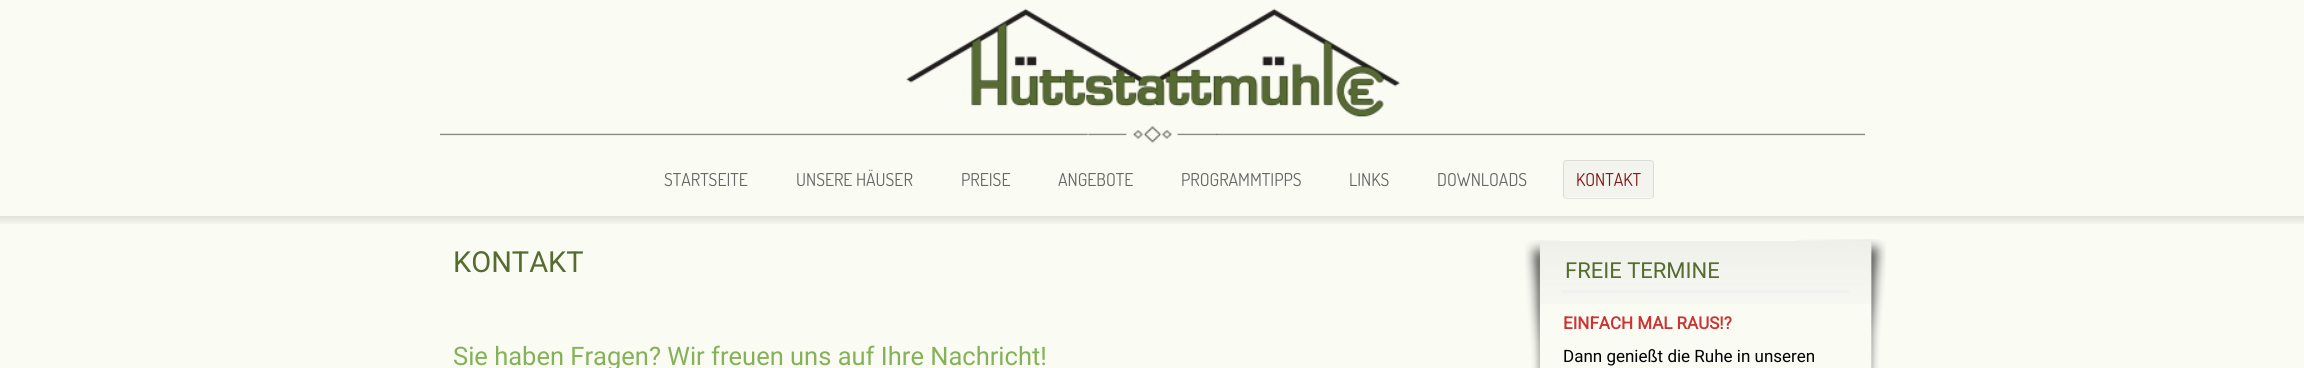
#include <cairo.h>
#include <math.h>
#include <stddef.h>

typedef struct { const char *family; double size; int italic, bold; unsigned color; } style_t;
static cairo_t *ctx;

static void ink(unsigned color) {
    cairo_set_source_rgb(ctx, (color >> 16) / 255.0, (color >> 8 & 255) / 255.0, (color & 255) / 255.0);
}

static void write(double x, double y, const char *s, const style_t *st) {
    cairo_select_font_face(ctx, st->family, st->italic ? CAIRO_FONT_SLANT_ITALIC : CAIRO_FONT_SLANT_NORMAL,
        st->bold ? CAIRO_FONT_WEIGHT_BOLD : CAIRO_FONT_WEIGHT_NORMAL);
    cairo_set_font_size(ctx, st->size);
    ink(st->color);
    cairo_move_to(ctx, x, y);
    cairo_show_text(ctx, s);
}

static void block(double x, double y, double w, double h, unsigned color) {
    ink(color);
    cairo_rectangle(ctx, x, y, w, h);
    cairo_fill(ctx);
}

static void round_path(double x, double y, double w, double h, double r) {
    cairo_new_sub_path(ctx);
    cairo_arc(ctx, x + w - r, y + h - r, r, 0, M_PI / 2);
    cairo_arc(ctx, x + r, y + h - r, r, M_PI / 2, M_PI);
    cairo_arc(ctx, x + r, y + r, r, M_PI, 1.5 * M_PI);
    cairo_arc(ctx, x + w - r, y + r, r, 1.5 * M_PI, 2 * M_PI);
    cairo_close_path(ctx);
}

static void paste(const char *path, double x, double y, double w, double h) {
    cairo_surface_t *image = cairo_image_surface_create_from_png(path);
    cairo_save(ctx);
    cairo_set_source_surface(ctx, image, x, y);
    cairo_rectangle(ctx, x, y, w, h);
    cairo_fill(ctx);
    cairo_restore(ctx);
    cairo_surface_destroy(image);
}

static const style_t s1 = {"Dosis", 17.75, 0, 0, 0x666666};
static const style_t s2 = {"Dosis", 17.75, 0, 0, 0x801515};
static const style_t s3 = {"Roboto", 29, 0, 0, 0x556b2f};
static const style_t s4 = {"Roboto", 25.5, 0, 0, 0x85b159};
static const style_t s5 = {"Roboto", 22, 0, 0, 0x556b2f};
static const style_t s6 = {"Roboto", 17, 0, 1, 0xcc3333};
static const style_t s7 = {"Roboto", 17, 0, 0, 0x000000};

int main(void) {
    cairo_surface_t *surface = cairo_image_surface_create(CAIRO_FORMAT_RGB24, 2304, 368);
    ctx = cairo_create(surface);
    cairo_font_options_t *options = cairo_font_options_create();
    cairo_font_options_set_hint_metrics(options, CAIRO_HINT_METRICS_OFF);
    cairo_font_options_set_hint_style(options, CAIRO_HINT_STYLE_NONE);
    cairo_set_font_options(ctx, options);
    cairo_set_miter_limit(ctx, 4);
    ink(0xfafcf4);
    cairo_paint(ctx);
    paste("pic1.png", 440, 126, 1425, 17);
    paste("pic2.png", 906, 8, 495, 110);
    write(664, 186, "STARTSEITE", &s1);
    write(796, 186, "UNSERE HÄUSER", &s1);
    write(961, 186, "PREISE", &s1);
    write(1058, 186, "ANGEBOTE", &s1);
    write(1181, 186, "PROGRAMMTIPPS", &s1);
    write(1349, 186, "LINKS", &s1);
    write(1437, 186, "DOWNLOADS", &s1);
    block(1563, 160, 91, 37, 0xf3f4ed);
    round_path(1563.5, 160.5, 90, 38, 3.5);
    cairo_set_source_rgba(ctx, 0, 0, 0, 0.1);
    cairo_set_line_width(ctx, 1);
    cairo_stroke(ctx);
    write(1576, 186, "KONTAKT", &s2);
    paste("pic3.png", 0, 216, 2304, 8);
    write(453, 272, "KONTAKT", &s3);
    write(453, 365, "Sie haben Fragen? Wir freuen uns auf Ihre Nachricht!", &s4);
    paste("pic4.png", 1525, 240, 34, 128);
    paste("pic5.png", 1796, 239, 90, 129);
    block(1540, 241, 331, 127, 0xfafcf4);
    paste("pic6.png", 1540, 241, 331, 63);
    block(1562, 290, 287, 3, 0xf1f2f0);
    write(1565, 278, "FREIE TERMINE", &s5);
    write(1563, 329, "EINFACH MAL RAUS!?", &s6);
    write(1563, 362, "Dann genießt die Ruhe in unseren", &s7);
    cairo_surface_write_to_png(surface, "screenshot.png");
    cairo_font_options_destroy(options);
    cairo_destroy(ctx);
    cairo_surface_destroy(surface);
    return 0;
}
